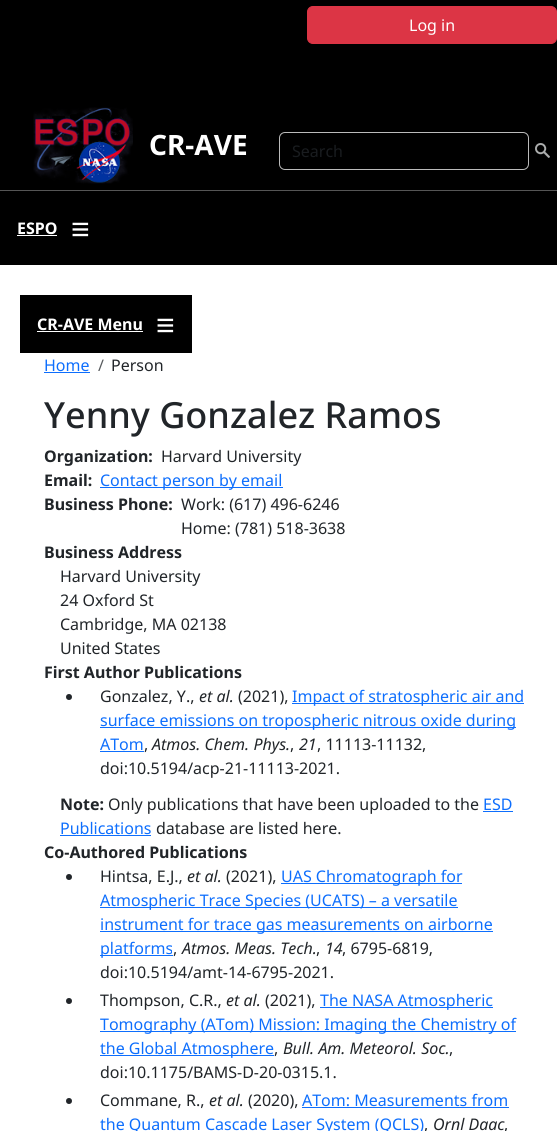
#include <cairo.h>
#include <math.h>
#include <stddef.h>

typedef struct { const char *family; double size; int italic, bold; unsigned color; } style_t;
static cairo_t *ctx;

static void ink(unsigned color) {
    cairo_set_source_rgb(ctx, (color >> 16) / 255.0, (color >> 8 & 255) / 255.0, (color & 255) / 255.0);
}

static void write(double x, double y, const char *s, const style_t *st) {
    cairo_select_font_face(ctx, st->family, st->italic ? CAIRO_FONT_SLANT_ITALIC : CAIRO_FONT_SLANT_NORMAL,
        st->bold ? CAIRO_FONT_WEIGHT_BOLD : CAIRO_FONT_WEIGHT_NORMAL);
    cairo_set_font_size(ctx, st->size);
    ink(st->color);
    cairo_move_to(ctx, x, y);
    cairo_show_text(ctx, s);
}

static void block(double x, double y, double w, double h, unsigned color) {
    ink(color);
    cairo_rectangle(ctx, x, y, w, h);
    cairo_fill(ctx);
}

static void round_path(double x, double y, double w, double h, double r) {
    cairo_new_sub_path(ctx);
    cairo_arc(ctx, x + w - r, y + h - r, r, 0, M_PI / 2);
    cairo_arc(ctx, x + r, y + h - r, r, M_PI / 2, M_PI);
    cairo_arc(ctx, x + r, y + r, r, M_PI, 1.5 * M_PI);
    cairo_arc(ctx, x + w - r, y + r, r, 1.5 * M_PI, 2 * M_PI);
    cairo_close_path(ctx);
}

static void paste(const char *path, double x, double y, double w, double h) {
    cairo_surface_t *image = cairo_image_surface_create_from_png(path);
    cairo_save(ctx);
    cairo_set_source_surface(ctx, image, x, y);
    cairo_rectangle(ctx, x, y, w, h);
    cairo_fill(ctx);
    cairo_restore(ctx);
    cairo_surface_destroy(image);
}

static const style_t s1 = {"Noto Sans", 16, 0, 0, 0xffffff};
static const style_t s2 = {"Noto Sans", 28, 0, 1, 0xffffff};
static const style_t s3 = {"Noto Sans", 16, 0, 0, 0x191c1f};
static const style_t s4 = {"Noto Sans", 16, 0, 1, 0xffffff};
static const style_t s5 = {"Liberation Sans", 32, 0, 1, 0xffffff};
static const style_t s6 = {"Noto Sans", 16, 0, 0, 0x0d6efd};
static const style_t s7 = {"Noto Sans", 16, 0, 0, 0x595c5f};
static const style_t s8 = {"Noto Sans", 16, 0, 0, 0x212529};
static const style_t s9 = {"Noto Sans Medium", 36, 0, 0, 0x212529};
static const style_t s10 = {"Noto Sans", 16, 0, 1, 0x212529};
static const style_t s11 = {"Noto Sans", 16, 1, 0, 0x212529};

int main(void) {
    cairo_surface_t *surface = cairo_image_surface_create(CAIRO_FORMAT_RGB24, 557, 1131);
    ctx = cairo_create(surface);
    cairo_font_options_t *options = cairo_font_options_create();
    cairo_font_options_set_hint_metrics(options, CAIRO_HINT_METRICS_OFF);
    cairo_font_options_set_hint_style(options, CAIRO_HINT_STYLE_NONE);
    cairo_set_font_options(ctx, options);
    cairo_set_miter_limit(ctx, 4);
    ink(0xffffff);
    cairo_paint(ctx);
    block(0, 0, 557, 190, 0x000000);
    ink(0xdc3545);
    round_path(307.5, 6.5, 249, 37, 5.5);
    cairo_fill_preserve(ctx);
    cairo_set_line_width(ctx, 1);
    cairo_stroke(ctx);
    write(409, 31, "Log in", &s1);
    paste("pic1.png", 33, 107, 100, 77);
    write(149, 155, "CR-AVE", &s2);
    round_path(279.5, 132.5, 249, 37, 5.5);
    ink(0xbbbbbb);
    cairo_stroke(ctx);
    write(292, 157, "Search", &s3);
    paste("pic2.png", 535, 143, 15, 15);
    block(0, 191, 557, 74, 0x000000);
    block(0, 190, 557, 1, 0x555555);
    write(17, 234, "ESPO", &s4);
    block(17, 235, 40, 1, 0xffffff);
    write(71, 240, "≡", &s5);
    block(20, 295, 172, 58, 0x000000);
    write(37, 330, "CR-AVE Menu", &s4);
    block(37, 331, 106, 1, 0xffffff);
    write(156, 336, "≡", &s5);
    write(44, 371, "Home", &s6);
    block(44, 372, 46, 1, 0x0d6efd);
    write(98, 371, "/", &s7);
    write(111, 371, "Person", &s8);
    write(44, 428, "Yenny Gonzalez Ramos", &s9);
    write(44, 462, "Organization:", &s10);
    write(161, 462, "Harvard University", &s8);
    write(44, 486, "Email:", &s10);
    block(100, 487, 183, 1, 0x0d6efd);
    write(100, 486, "Contact person by email", &s6);
    write(44, 510, "Business Phone:", &s10);
    write(181, 510, "Work: (617) 496-6246", &s8);
    write(181, 534, "Home: (781) 518-3638", &s8);
    write(44, 558, "Business Address", &s10);
    write(60, 582, "Harvard University", &s8);
    write(60, 606, "24 Oxford St", &s8);
    write(60, 630, "Cambridge, MA 02138", &s8);
    write(60, 654, "United States", &s8);
    write(44, 678, "First Author Publications", &s10);
    cairo_new_path(ctx);
    cairo_arc(ctx, 69, 697, 3, 0, 2 * M_PI);
    cairo_fill(ctx);
    write(100, 702, "Gonzalez, Y.,", &s8);
    write(199, 702, "et al.", &s11);
    write(238, 702, "(2021),", &s8);
    block(292, 703, 232, 1, 0x0d6efd);
    write(292, 702, "Impact of stratospheric air and", &s6);
    block(100, 727, 416, 1, 0x0d6efd);
    write(100, 726, "surface emissions on tropospheric nitrous oxide during", &s6);
    write(100, 750, "ATom", &s6);
    block(100, 751, 44, 1, 0x0d6efd);
    write(144, 750, ",", &s8);
    write(152, 750, "Atmos. Chem. Phys.", &s11);
    write(290, 750, ",", &s8);
    write(299, 750, "21", &s11);
    write(317, 750, ", 11113-11132,", &s8);
    write(100, 774, "doi:10.5194/acp-21-11113-2021.", &s8);
    write(60, 810, "Note:", &s10);
    write(108, 810, "Only publications that have been uploaded to the", &s8);
    write(483, 810, "ESD", &s6);
    block(483, 811, 30, 1, 0x0d6efd);
    write(60, 834, "Publications", &s6);
    block(60, 835, 91, 1, 0x0d6efd);
    write(156, 834, "database are listed here.", &s8);
    write(44, 858, "Co-Authored Publications", &s10);
    cairo_new_path(ctx);
    cairo_arc(ctx, 69, 877, 3, 0, 2 * M_PI);
    cairo_fill(ctx);
    write(100, 882, "Hintsa, E.J.,", &s8);
    write(187, 882, "et al.", &s11);
    write(226, 882, "(2021),", &s8);
    block(281, 883, 181, 1, 0x0d6efd);
    write(281, 882, "UAS Chromatograph for", &s6);
    block(100, 907, 358, 1, 0x0d6efd);
    write(100, 906, "Atmospheric Trace Species (UCATS) – a versatile", &s6);
    block(100, 931, 393, 1, 0x0d6efd);
    write(100, 930, "instrument for trace gas measurements on airborne", &s6);
    block(100, 955, 73, 1, 0x0d6efd);
    write(100, 954, "platforms", &s6);
    write(173, 954, ",", &s8);
    write(182, 954, "Atmos. Meas. Tech.", &s11);
    write(316, 954, ",", &s8);
    write(325, 954, "14", &s11);
    write(342, 954, ", 6795-6819,", &s8);
    write(100, 978, "doi:10.5194/amt-14-6795-2021.", &s8);
    cairo_new_path(ctx);
    cairo_arc(ctx, 69, 1001, 3, 0, 2 * M_PI);
    cairo_fill(ctx);
    write(100, 1006, "Thompson, C.R.,", &s8);
    write(226, 1006, "et al.", &s11);
    write(265, 1006, "(2021),", &s8);
    block(320, 1007, 173, 1, 0x0d6efd);
    write(320, 1006, "The NASA Atmospheric", &s6);
    block(100, 1031, 416, 1, 0x0d6efd);
    write(100, 1030, "Tomography (ATom) Mission: Imaging the Chemistry of", &s6);
    block(100, 1055, 174, 1, 0x0d6efd);
    write(100, 1054, "the Global Atmosphere", &s6);
    write(274, 1054, ",", &s8);
    write(283, 1054, "Bull. Am. Meteorol. Soc.", &s11);
    write(449, 1054, ",", &s8);
    write(100, 1078, "doi:10.1175/BAMS-D-20-0315.1.", &s8);
    cairo_new_path(ctx);
    cairo_arc(ctx, 69, 1101, 3, 0, 2 * M_PI);
    cairo_fill(ctx);
    write(100, 1106, "Commane, R.,", &s8);
    write(209, 1106, "et al.", &s11);
    write(248, 1106, "(2020),", &s8);
    write(302, 1106, "ATom: Measurements from", &s6);
    block(302, 1107, 207, 1, 0x0d6efd);
    write(100, 1130, "the Quantum Cascade Laser System (QCLS)", &s6);
    write(424, 1130, ",", &s8);
    write(433, 1130, "Ornl Daac", &s11);
    write(504, 1130, ",", &s8);
    cairo_surface_write_to_png(surface, "screenshot.png");
    cairo_font_options_destroy(options);
    cairo_destroy(ctx);
    cairo_surface_destroy(surface);
    return 0;
}
